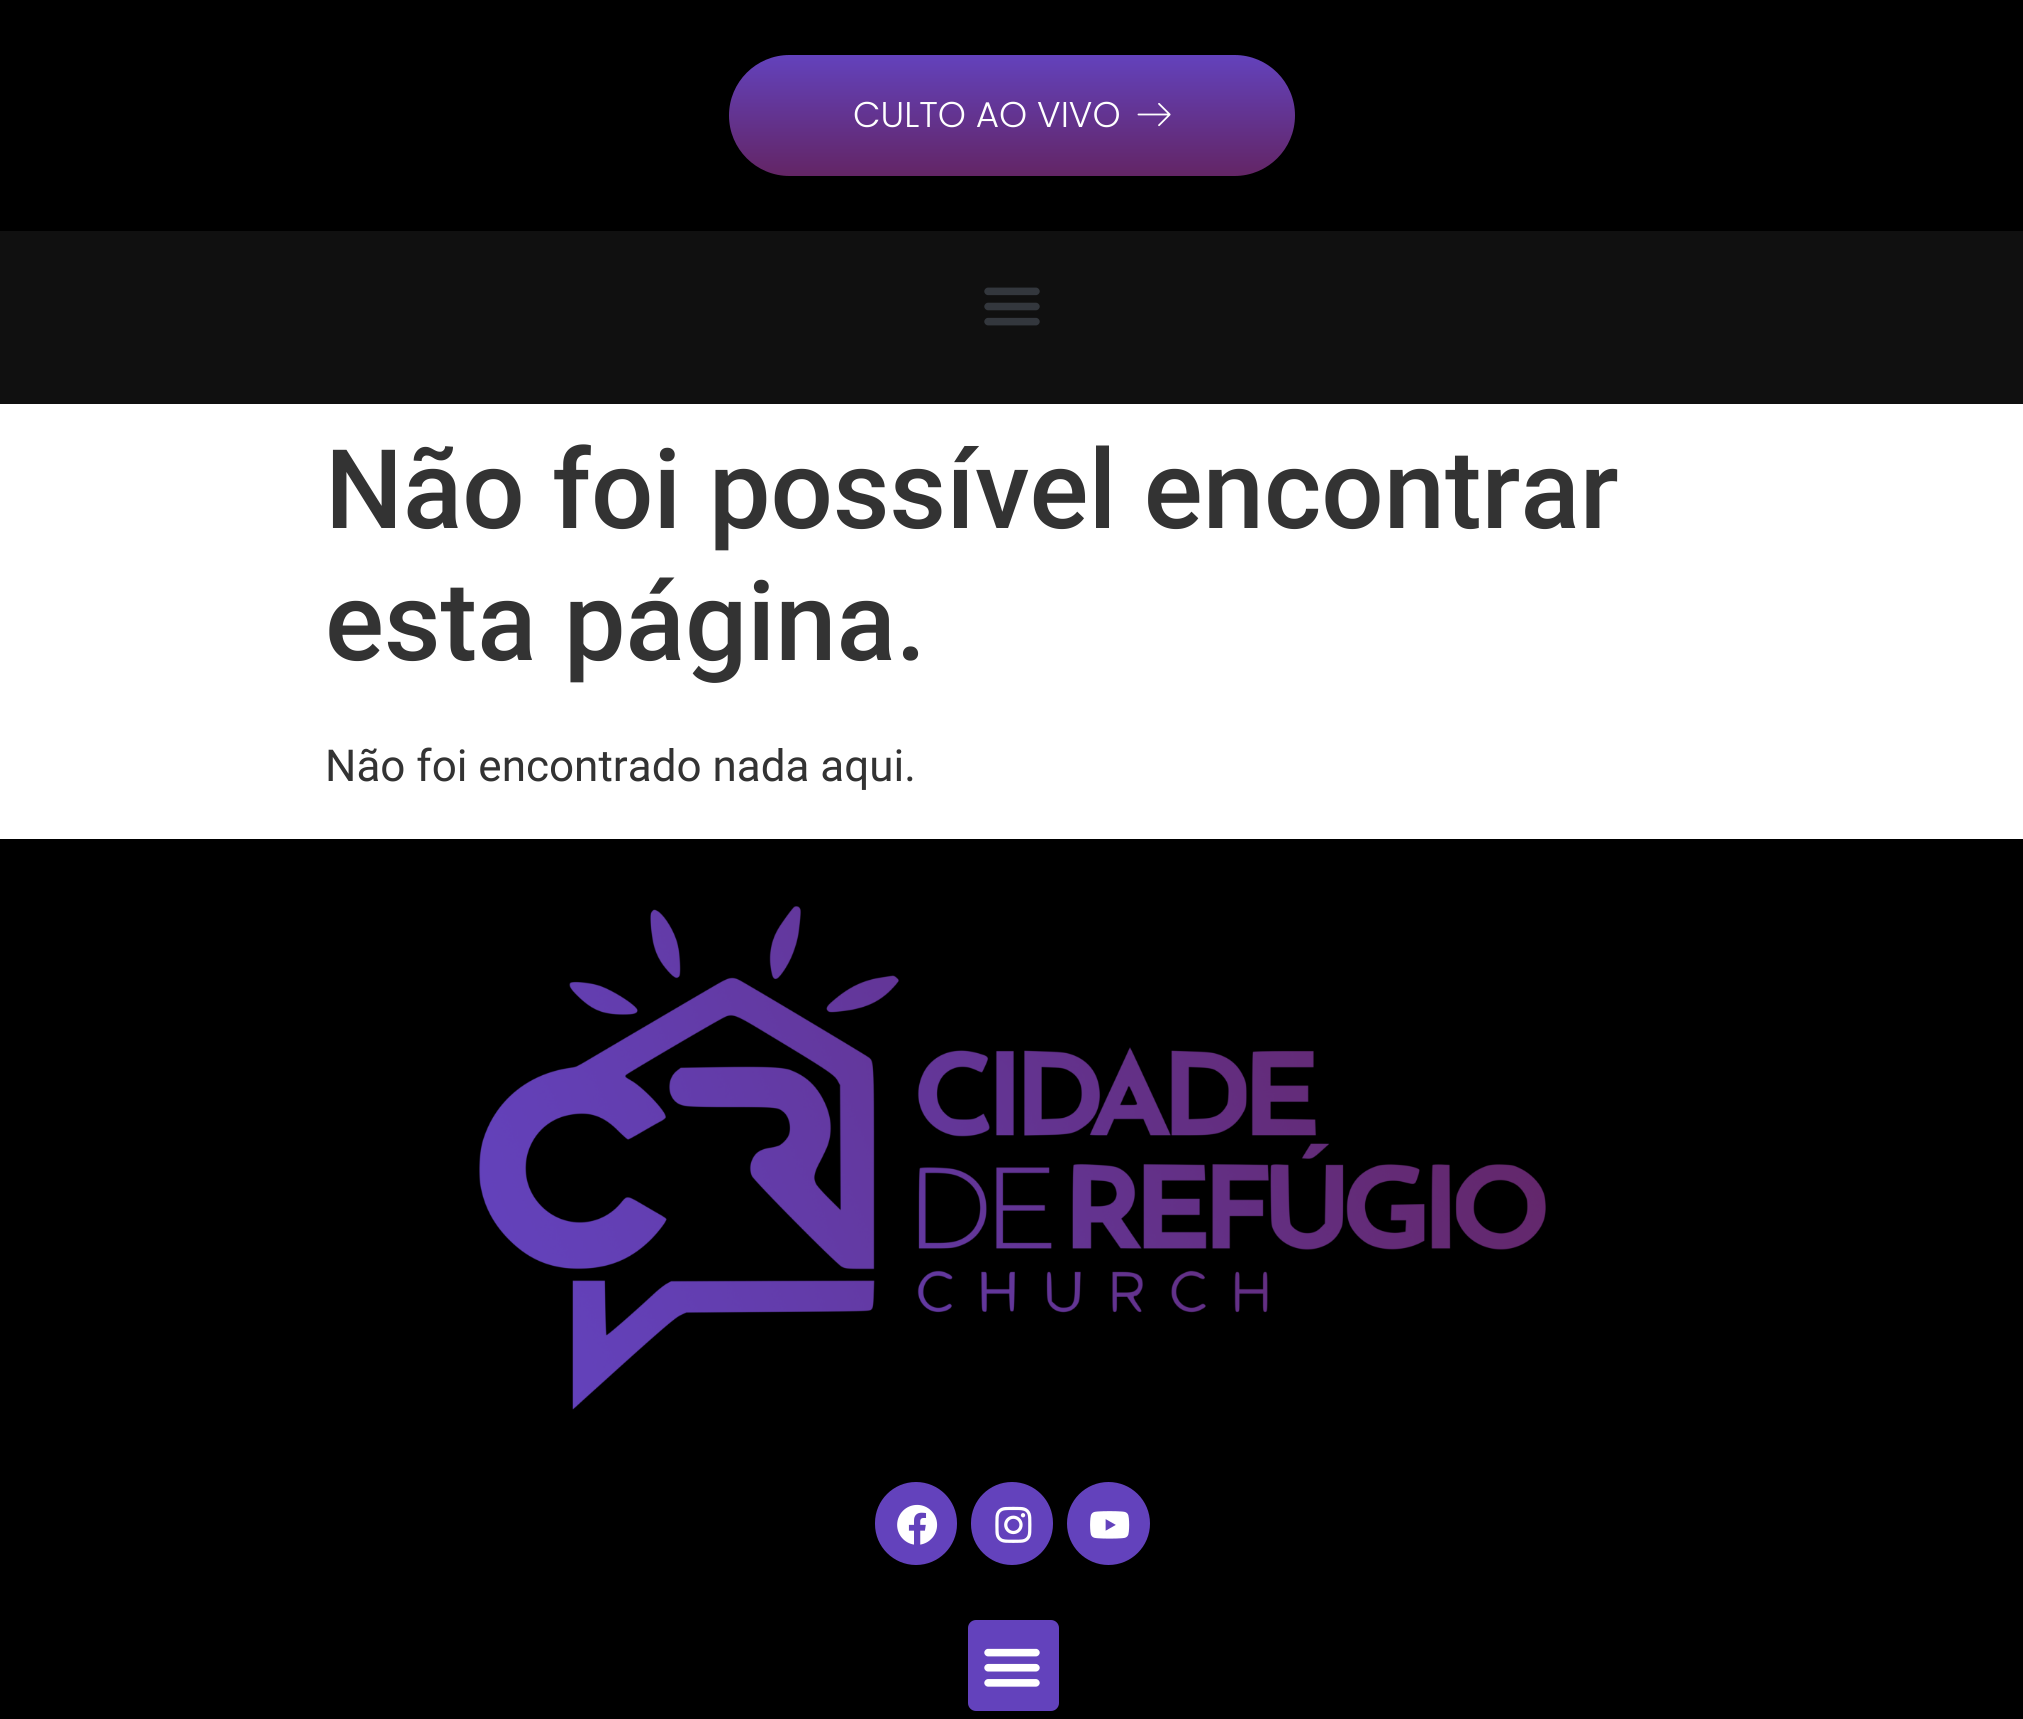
#include <cairo.h>
#include <math.h>
#include <stddef.h>

typedef struct { const char *family; double size; int italic, bold; unsigned color; } style_t;
static cairo_t *ctx;

static void ink(unsigned color) {
    cairo_set_source_rgb(ctx, (color >> 16) / 255.0, (color >> 8 & 255) / 255.0, (color & 255) / 255.0);
}

static void write(double x, double y, const char *s, const style_t *st) {
    cairo_select_font_face(ctx, st->family, st->italic ? CAIRO_FONT_SLANT_ITALIC : CAIRO_FONT_SLANT_NORMAL,
        st->bold ? CAIRO_FONT_WEIGHT_BOLD : CAIRO_FONT_WEIGHT_NORMAL);
    cairo_set_font_size(ctx, st->size);
    ink(st->color);
    cairo_move_to(ctx, x, y);
    cairo_show_text(ctx, s);
}

static void block(double x, double y, double w, double h, unsigned color) {
    ink(color);
    cairo_rectangle(ctx, x, y, w, h);
    cairo_fill(ctx);
}

static void round_path(double x, double y, double w, double h, double r) {
    cairo_new_sub_path(ctx);
    cairo_arc(ctx, x + w - r, y + h - r, r, 0, M_PI / 2);
    cairo_arc(ctx, x + r, y + h - r, r, M_PI / 2, M_PI);
    cairo_arc(ctx, x + r, y + r, r, M_PI, 1.5 * M_PI);
    cairo_arc(ctx, x + w - r, y + r, r, 1.5 * M_PI, 2 * M_PI);
    cairo_close_path(ctx);
}

static void paste(const char *path, double x, double y, double w, double h) {
    cairo_surface_t *image = cairo_image_surface_create_from_png(path);
    cairo_save(ctx);
    cairo_set_source_surface(ctx, image, x, y);
    cairo_rectangle(ctx, x, y, w, h);
    cairo_fill(ctx);
    cairo_restore(ctx);
    cairo_surface_destroy(image);
}

static const style_t s1 = {"Poppins Light", 35.75, 0, 0, 0xffffff};
static const style_t s2 = {"Roboto Medium", 110, 0, 0, 0x333333};
static const style_t s3 = {"Roboto", 44, 0, 0, 0x333333};

int main(void) {
    cairo_surface_t *surface = cairo_image_surface_create(CAIRO_FORMAT_RGB24, 2023, 1719);
    ctx = cairo_create(surface);
    cairo_font_options_t *options = cairo_font_options_create();
    cairo_font_options_set_hint_metrics(options, CAIRO_HINT_METRICS_OFF);
    cairo_font_options_set_hint_style(options, CAIRO_HINT_STYLE_NONE);
    cairo_set_font_options(ctx, options);
    cairo_set_miter_limit(ctx, 4);
    cairo_pattern_t *gradient;
    ink(0xffffff);
    cairo_paint(ctx);
    block(0, 231, 2023, 173, 0x101010);
    block(0, 0, 2023, 231, 0x000000);
    gradient = cairo_pattern_create_linear(1012, 55, 1012, 176);
    cairo_pattern_add_color_stop_rgba(gradient, 0, 0.388, 0.259, 0.737, 1);
    cairo_pattern_add_color_stop_rgba(gradient, 1, 0.388, 0.145, 0.396, 1);
    cairo_set_source(ctx, gradient);
    cairo_pattern_destroy(gradient);
    round_path(729, 55, 566, 121, 60.5);
    cairo_fill(ctx);
    write(853, 127, "CULTO AO VIVO", &s1);
    paste("pic1.png", 1137, 103, 34, 24);
    paste("pic2.png", 984, 287, 56, 39);
    write(325, 528, "Não foi possível encontrar", &s2);
    write(325, 660, "esta página.", &s2);
    write(325, 781, "Não foi encontrado nada aqui.", &s3);
    block(0, 839, 2023, 880, 0x000000);
    paste("pic3.png", 479, 906, 1067, 504);
    ink(0x6342bc);
    round_path(875, 1482, 82, 83, 41);
    cairo_fill(ctx);
    paste("pic4.png", 897, 1504, 41, 41);
    round_path(971, 1482, 82, 83, 41);
    cairo_fill(ctx);
    paste("pic5.png", 995, 1506, 37, 37);
    cairo_arc(ctx, 1108.5, 1523.5, 41.5, 0, 2 * M_PI);
    cairo_fill(ctx);
    paste("pic6.png", 1090, 1511, 40, 28);
    round_path(968, 1620, 91, 91, 8);
    cairo_fill(ctx);
    paste("pic7.png", 984, 1648, 56, 39);
    cairo_surface_write_to_png(surface, "screenshot.png");
    cairo_font_options_destroy(options);
    cairo_destroy(ctx);
    cairo_surface_destroy(surface);
    return 0;
}
